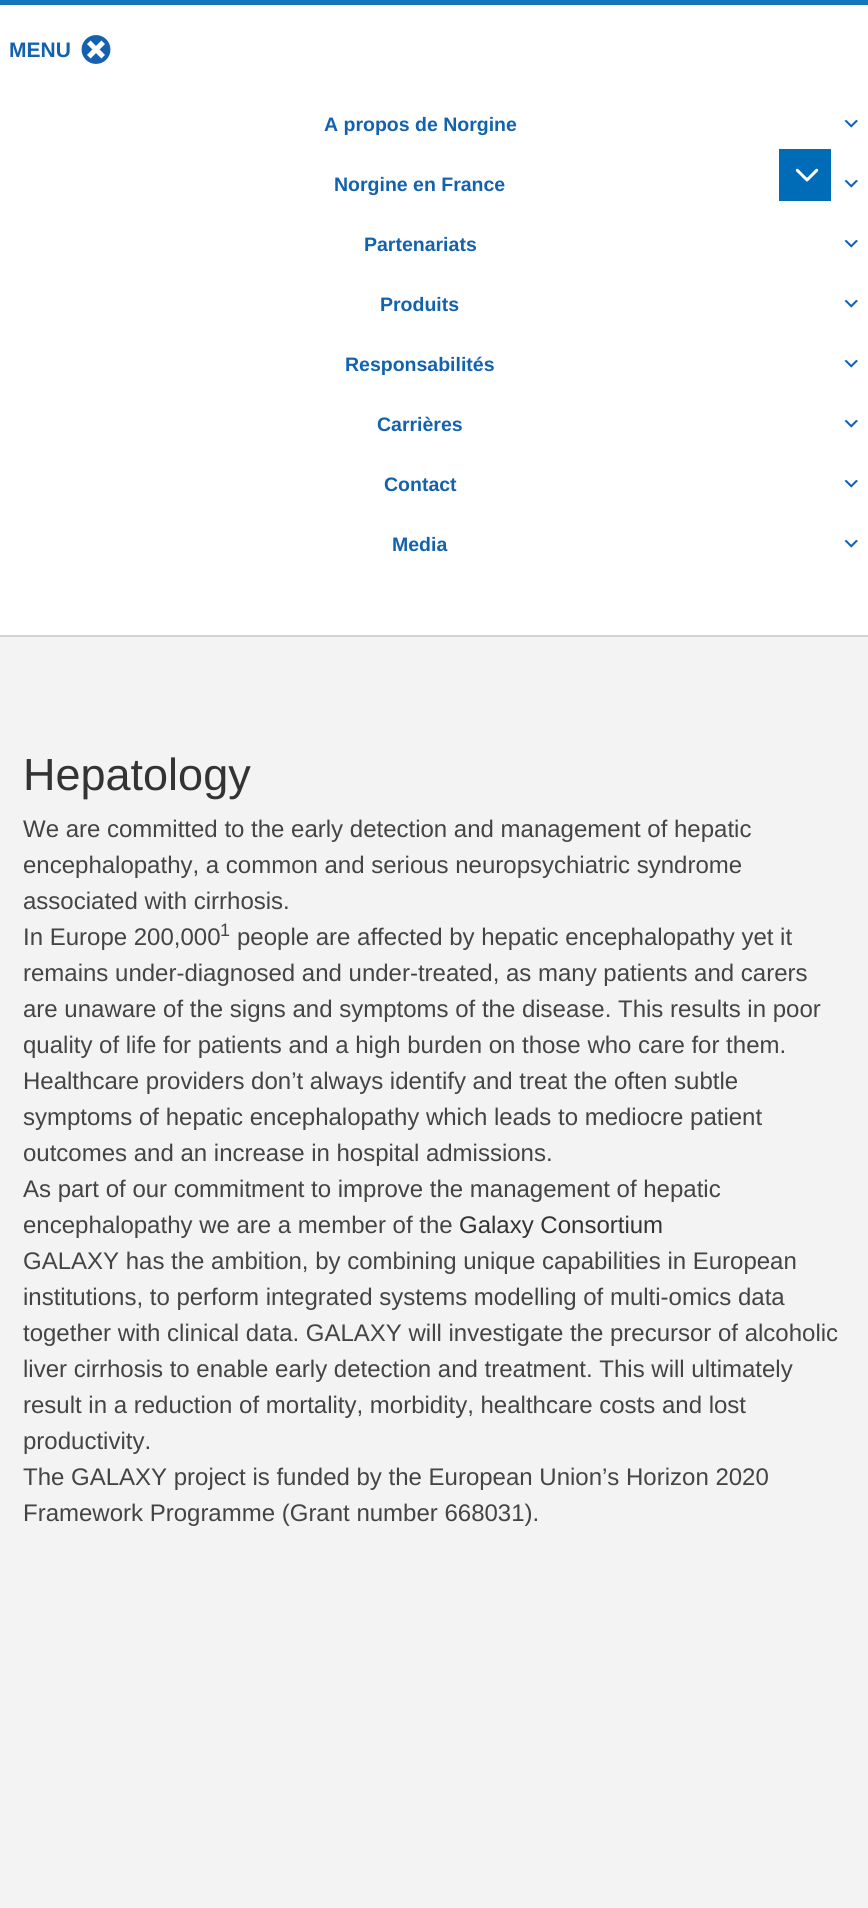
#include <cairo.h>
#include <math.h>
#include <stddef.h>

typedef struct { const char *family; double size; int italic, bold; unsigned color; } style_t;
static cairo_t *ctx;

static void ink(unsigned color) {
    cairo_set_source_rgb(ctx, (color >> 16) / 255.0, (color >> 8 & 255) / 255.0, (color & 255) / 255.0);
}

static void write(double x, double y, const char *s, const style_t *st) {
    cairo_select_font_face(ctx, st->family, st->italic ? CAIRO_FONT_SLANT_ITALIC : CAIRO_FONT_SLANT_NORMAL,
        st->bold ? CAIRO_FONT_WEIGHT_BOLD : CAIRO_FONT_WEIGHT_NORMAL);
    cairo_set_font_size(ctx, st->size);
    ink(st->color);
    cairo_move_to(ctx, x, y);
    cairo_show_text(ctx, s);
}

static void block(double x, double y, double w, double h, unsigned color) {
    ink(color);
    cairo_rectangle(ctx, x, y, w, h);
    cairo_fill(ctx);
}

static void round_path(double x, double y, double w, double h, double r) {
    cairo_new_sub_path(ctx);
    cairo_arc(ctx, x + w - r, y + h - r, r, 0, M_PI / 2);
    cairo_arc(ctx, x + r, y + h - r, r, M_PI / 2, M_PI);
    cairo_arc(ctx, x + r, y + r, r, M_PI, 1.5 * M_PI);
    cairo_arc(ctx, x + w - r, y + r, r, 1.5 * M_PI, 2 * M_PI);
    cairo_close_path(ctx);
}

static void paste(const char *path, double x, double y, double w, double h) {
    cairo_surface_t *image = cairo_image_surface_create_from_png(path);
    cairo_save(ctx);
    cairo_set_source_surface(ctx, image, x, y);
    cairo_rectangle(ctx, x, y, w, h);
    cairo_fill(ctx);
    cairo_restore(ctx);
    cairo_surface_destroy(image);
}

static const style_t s1 = {"Liberation Sans", 21, 0, 1, 0x1362ae};
static const style_t s2 = {"Liberation Sans", 19.5, 0, 1, 0x1362ae};
static const style_t s3 = {"Liberation Sans", 45, 0, 0, 0x333333};
static const style_t s4 = {"Liberation Sans", 24, 0, 0, 0x444444};
static const style_t s5 = {"Liberation Sans", 18, 0, 0, 0x444444};
static const style_t s6 = {"Liberation Sans", 24, 0, 0, 0x333333};

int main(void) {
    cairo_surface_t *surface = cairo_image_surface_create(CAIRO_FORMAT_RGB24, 868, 1908);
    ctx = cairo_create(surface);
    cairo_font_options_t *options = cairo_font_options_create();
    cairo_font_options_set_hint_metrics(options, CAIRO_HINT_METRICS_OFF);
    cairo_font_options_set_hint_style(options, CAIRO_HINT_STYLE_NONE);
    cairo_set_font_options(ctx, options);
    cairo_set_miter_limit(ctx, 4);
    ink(0xf3f3f3);
    cairo_paint(ctx);
    block(0, 0, 868, 5, 0x1376bc);
    block(0, 635, 868, 2, 0xd3d3d3);
    block(0, 5, 868, 90, 0xfefefe);
    block(345, 5, 180, 6, 0xf3f9fd);
    cairo_set_source_rgba(ctx, 1, 1, 1, 0.92);
    round_path(0, 5, 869, 90, 3);
    cairo_fill(ctx);
    write(9, 57, "MENU", &s1);
    paste("pic1.png", 81, 35, 30, 29);
    block(0, 95, 868, 540, 0xffffff);
    write(324, 131, "A propos de Norgine", &s2);
    paste("pic2.png", 844, 119, 14, 9);
    write(334, 191, "Norgine en France", &s2);
    paste("pic2.png", 844, 179, 14, 9);
    write(364, 251, "Partenariats", &s2);
    paste("pic2.png", 844, 239, 14, 9);
    write(380, 311, "Produits", &s2);
    paste("pic2.png", 844, 299, 14, 9);
    write(345, 371, "Responsabilités", &s2);
    paste("pic2.png", 844, 359, 14, 9);
    write(377, 431, "Carrières", &s2);
    paste("pic2.png", 844, 419, 14, 9);
    write(384, 491, "Contact", &s2);
    paste("pic2.png", 844, 479, 14, 9);
    write(392, 551, "Media", &s2);
    paste("pic2.png", 844, 539, 14, 9);
    block(779, 149, 52, 52, 0x006bb7);
    paste("pic3.png", 795, 168, 24, 14);
    write(23, 790, "Hepatology", &s3);
    write(23, 837, "We are committed to the early detection and management of hepatic", &s4);
    write(23, 873, "encephalopathy, a common and serious neuropsychiatric syndrome", &s4);
    write(23, 909, "associated with cirrhosis.", &s4);
    write(23, 945, "In Europe 200,000", &s4);
    write(220, 936, "1", &s5);
    write(237, 945, "people are affected by hepatic encephalopathy yet it", &s4);
    write(23, 981, "remains under-diagnosed and under-treated, as many patients and carers", &s4);
    write(23, 1017, "are unaware of the signs and symptoms of the disease. This results in poor", &s4);
    write(23, 1053, "quality of life for patients and a high burden on those who care for them.", &s4);
    write(23, 1089, "Healthcare providers don’t always identify and treat the often subtle", &s4);
    write(23, 1125, "symptoms of hepatic encephalopathy which leads to mediocre patient", &s4);
    write(23, 1161, "outcomes and an increase in hospital admissions.", &s4);
    write(23, 1197, "As part of our commitment to improve the management of hepatic", &s4);
    write(23, 1233, "encephalopathy we are a member of the", &s4);
    write(459, 1233, "Galaxy Consortium", &s6);
    write(23, 1269, "GALAXY has the ambition, by combining unique capabilities in European", &s4);
    write(23, 1305, "institutions, to perform integrated systems modelling of multi-omics data", &s4);
    write(23, 1341, "together with clinical data. GALAXY will investigate the precursor of alcoholic", &s4);
    write(23, 1377, "liver cirrhosis to enable early detection and treatment. This will ultimately", &s4);
    write(23, 1413, "result in a reduction of mortality, morbidity, healthcare costs and lost", &s4);
    write(23, 1449, "productivity.", &s4);
    write(23, 1485, "The GALAXY project is funded by the European Union’s Horizon 2020", &s4);
    write(23, 1521, "Framework Programme (Grant number 668031).", &s4);
    cairo_surface_write_to_png(surface, "screenshot.png");
    cairo_font_options_destroy(options);
    cairo_destroy(ctx);
    cairo_surface_destroy(surface);
    return 0;
}
